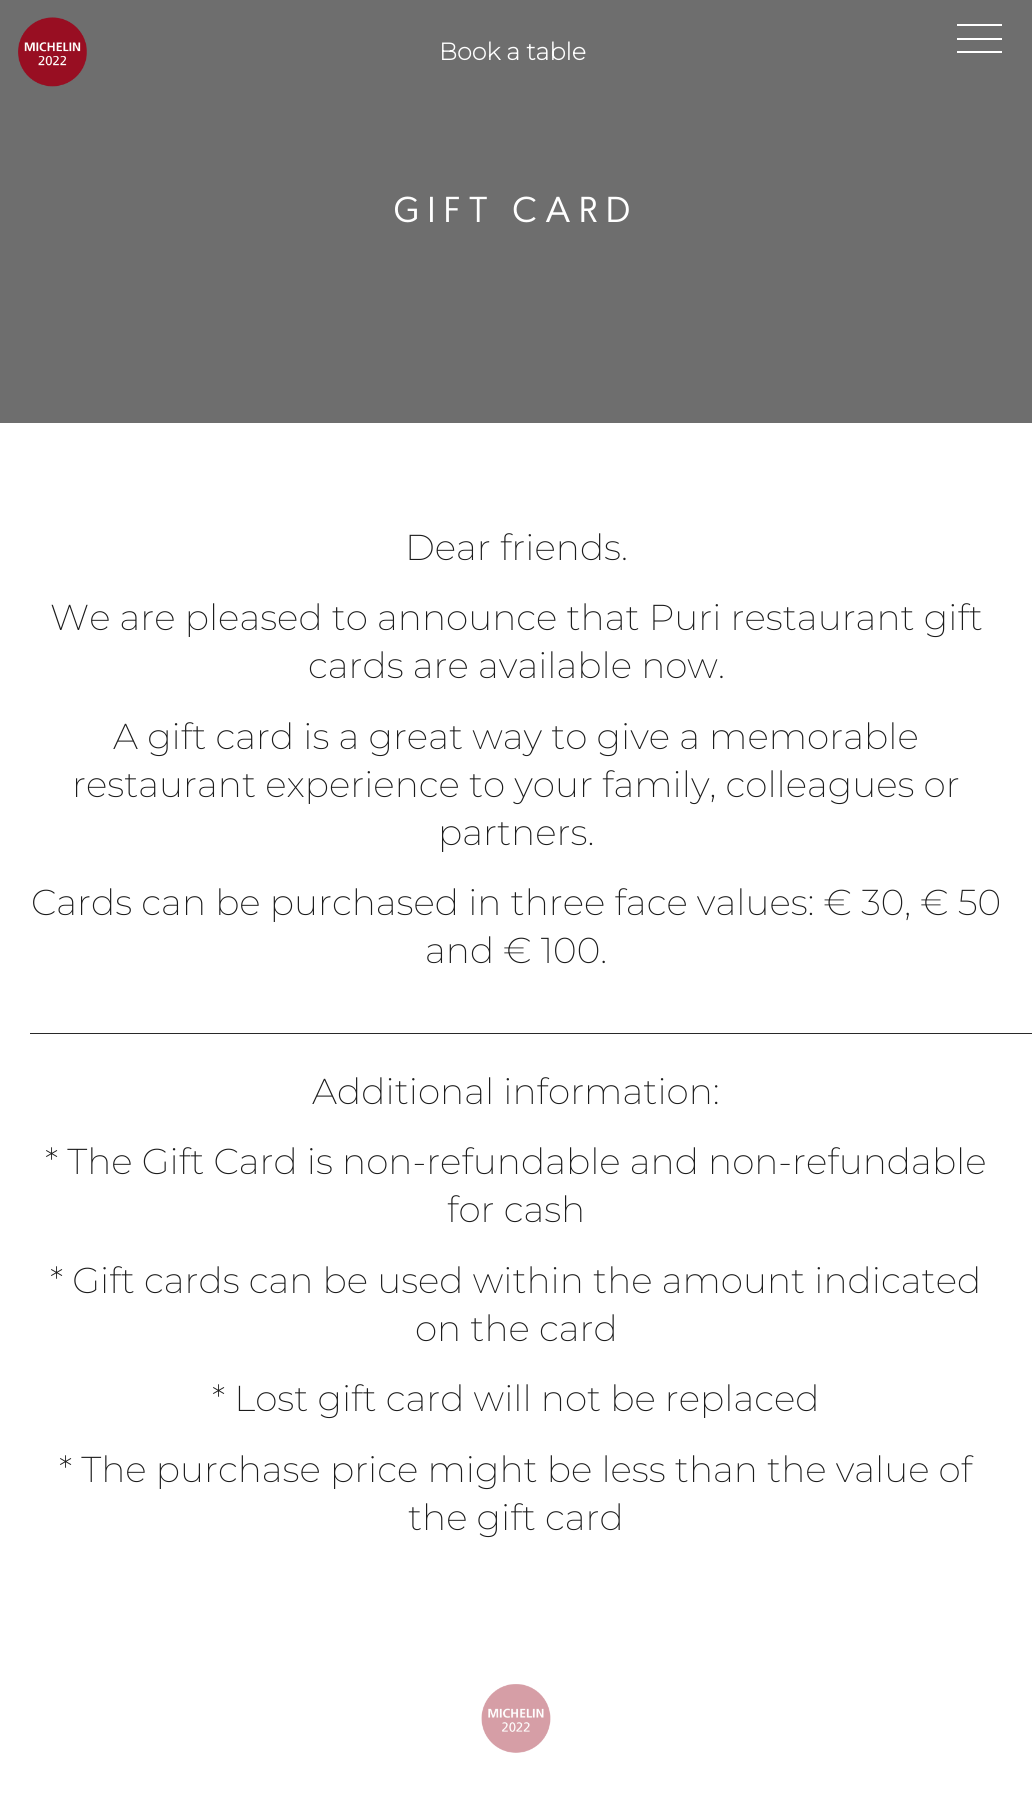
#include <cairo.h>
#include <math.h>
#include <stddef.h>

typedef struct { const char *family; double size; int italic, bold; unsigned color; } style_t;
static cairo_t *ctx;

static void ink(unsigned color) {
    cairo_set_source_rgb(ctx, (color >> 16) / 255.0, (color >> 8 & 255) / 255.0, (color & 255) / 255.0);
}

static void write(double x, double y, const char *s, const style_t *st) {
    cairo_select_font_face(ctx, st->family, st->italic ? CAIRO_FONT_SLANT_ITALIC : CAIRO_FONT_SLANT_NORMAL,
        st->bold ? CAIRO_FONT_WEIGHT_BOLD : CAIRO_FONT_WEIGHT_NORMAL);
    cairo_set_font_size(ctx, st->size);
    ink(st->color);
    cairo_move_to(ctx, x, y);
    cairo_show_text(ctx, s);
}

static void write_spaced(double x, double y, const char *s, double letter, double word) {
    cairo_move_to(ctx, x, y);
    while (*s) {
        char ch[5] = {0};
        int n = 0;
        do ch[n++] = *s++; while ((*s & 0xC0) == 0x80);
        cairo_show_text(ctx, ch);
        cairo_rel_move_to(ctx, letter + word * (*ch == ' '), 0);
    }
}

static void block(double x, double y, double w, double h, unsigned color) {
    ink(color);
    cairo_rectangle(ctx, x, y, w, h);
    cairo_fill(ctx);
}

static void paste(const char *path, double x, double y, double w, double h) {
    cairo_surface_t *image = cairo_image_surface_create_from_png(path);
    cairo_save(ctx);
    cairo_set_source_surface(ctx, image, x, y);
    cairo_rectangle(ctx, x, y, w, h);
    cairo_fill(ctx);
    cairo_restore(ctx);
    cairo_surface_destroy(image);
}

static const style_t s1 = {"Montserrat", 24, 0, 1, 0xffffff};
static const style_t s2 = {"Montserrat ExtraLight", 36, 0, 0, 0x1c1c1c};

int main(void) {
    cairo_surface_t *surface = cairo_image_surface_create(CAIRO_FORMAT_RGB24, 1032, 1805);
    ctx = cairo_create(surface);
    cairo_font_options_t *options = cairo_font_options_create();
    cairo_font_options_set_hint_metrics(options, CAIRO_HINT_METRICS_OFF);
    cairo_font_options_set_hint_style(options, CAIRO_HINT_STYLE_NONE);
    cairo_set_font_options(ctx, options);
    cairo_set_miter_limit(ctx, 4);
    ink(0xffffff);
    cairo_paint(ctx);
    block(0, 0, 1032, 423, 0x6e6e6e);
    paste("pic1.png", 18, 17, 69, 70);
    write(439, 60, "Book a table", &s1);
    block(957, 24, 45, 2, 0xffffff);
    block(957, 38, 45, 2, 0xffffff);
    block(957, 51, 45, 2, 0xffffff);
    cairo_select_font_face(ctx, "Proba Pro", CAIRO_FONT_SLANT_NORMAL, CAIRO_FONT_WEIGHT_NORMAL);
    cairo_set_font_size(ctx, 36);
    write_spaced(393, 222, "GIFT CARD", 7.5, 0);
    write(405, 560, "Dear friends.", &s2);
    write(50, 630, "We are pleased to announce that Puri restaurant gift", &s2);
    write(308, 678, "cards are available now.", &s2);
    write(113, 749, "A gift card is a great way to give a memorable", &s2);
    write(72, 797, "restaurant experience to your family, colleagues or", &s2);
    write(438, 845, "partners.", &s2);
    write(31, 915, "Cards can be purchased in three face values: € 30, € 50", &s2);
    write(425, 963, "and € 100.", &s2);
    write(30, 1033, "________________________________________________________", &s2);
    write(312, 1104, "Additional information:", &s2);
    write(45, 1174, "* The Gift Card is non-refundable and non-refundable", &s2);
    write(447, 1222, "for cash", &s2);
    write(50, 1293, "* Gift cards can be used within the amount indicated", &s2);
    write(415, 1341, "on the card", &s2);
    write(212, 1411, "* Lost gift card will not be replaced", &s2);
    write(59, 1482, "* The purchase price might be less than the value of", &s2);
    write(408, 1530, "the gift card", &s2);
    paste("pic2.png", 481, 1684, 70, 69);
    cairo_surface_write_to_png(surface, "screenshot.png");
    cairo_font_options_destroy(options);
    cairo_destroy(ctx);
    cairo_surface_destroy(surface);
    return 0;
}
